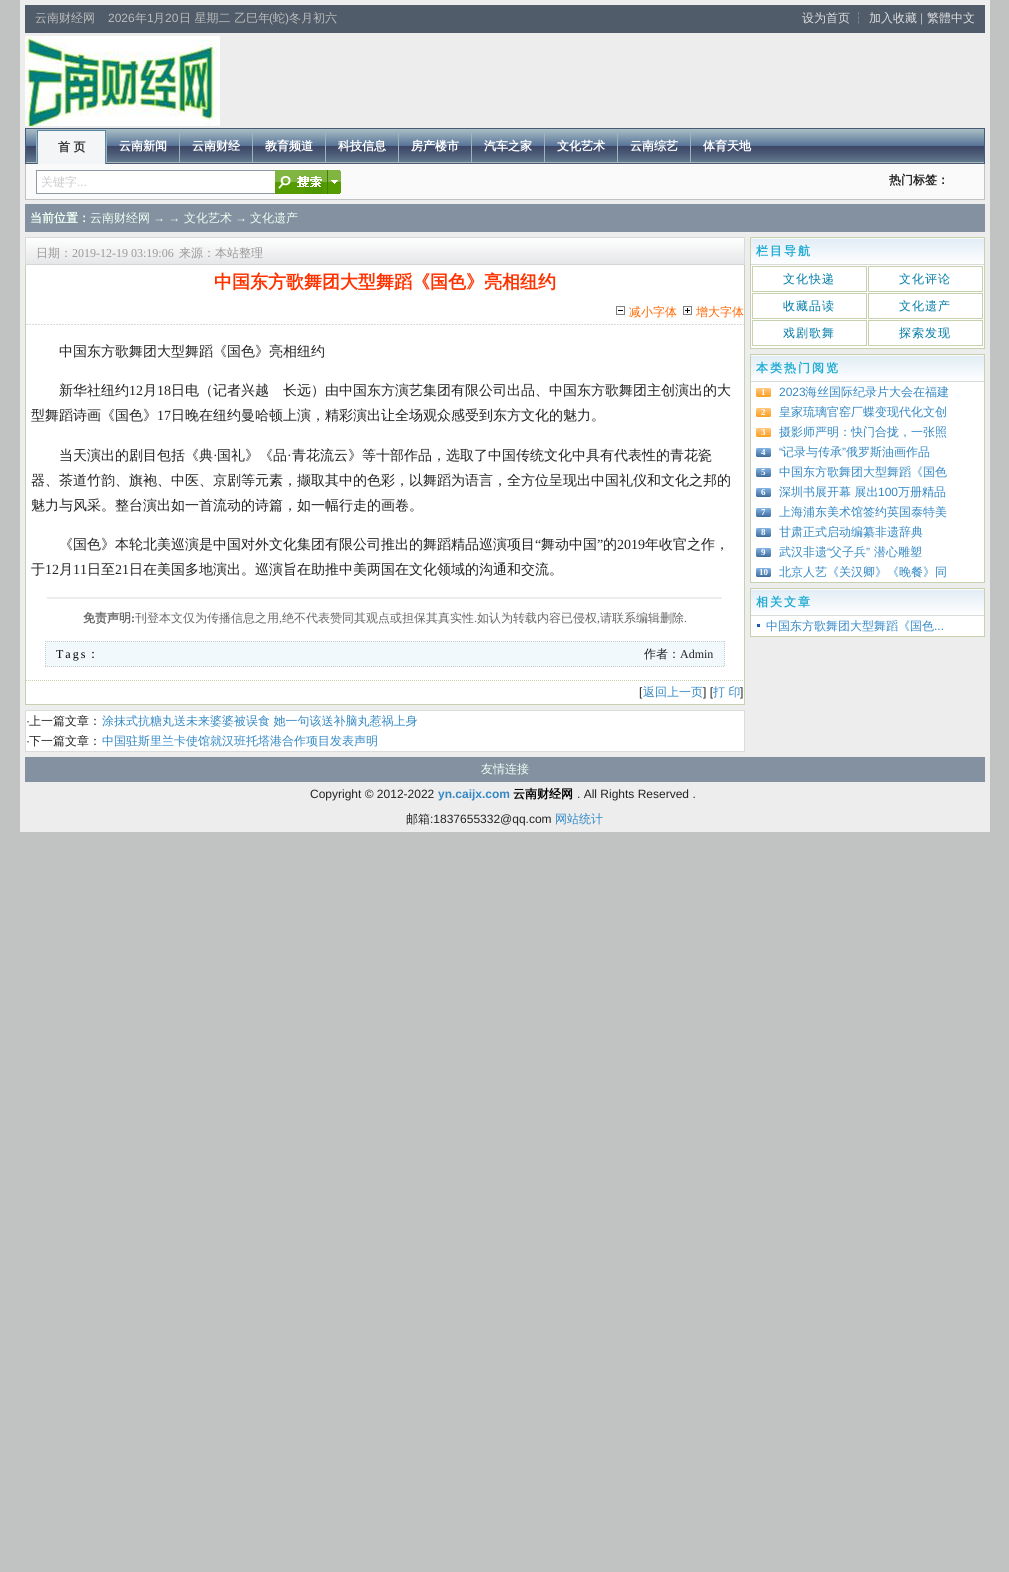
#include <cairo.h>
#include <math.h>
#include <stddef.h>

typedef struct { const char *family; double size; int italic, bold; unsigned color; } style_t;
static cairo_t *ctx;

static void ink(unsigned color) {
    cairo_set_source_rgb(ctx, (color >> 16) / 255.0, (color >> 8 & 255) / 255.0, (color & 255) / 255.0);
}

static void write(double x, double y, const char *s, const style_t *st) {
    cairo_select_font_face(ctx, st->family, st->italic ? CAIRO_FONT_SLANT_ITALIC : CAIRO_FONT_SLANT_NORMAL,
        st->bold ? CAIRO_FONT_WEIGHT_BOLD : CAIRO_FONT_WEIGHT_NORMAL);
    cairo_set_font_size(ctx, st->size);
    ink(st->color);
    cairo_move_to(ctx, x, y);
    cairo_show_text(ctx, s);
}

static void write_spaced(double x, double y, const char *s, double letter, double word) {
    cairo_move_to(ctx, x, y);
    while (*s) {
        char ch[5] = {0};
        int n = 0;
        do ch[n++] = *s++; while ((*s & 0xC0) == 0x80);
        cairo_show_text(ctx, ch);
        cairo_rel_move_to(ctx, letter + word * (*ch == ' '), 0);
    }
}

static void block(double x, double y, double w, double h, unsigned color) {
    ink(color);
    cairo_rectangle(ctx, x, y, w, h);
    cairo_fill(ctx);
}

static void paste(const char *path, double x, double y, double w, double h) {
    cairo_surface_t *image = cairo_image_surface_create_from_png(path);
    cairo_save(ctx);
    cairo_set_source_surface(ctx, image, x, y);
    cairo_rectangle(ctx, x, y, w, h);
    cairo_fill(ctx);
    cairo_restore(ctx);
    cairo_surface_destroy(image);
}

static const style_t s1 = {"WenQuanYi Zen Hei Medium", 12, 0, 0, 0xbbbbbb};
static const style_t s2 = {"Liberation Sans", 12, 0, 0, 0xbbbbbb};
static const style_t s3 = {"WenQuanYi Zen Hei Medium", 12, 0, 0, 0xdedede};
static const style_t s4 = {"WenQuanYi Zen Hei", 12, 0, 1, 0x333333};
static const style_t s5 = {"WenQuanYi Zen Hei", 12, 0, 1, 0xffffff};
static const style_t s6 = {"WenQuanYi Zen Hei Medium", 12, 0, 0, 0xcccccc};
static const style_t s7 = {"Liberation Sans", 12, 0, 0, 0xcccccc};
static const style_t s8 = {"WenQuanYi Zen Hei", 12, 0, 1, 0x222222};
static const style_t s9 = {"WenQuanYi Zen Hei", 12, 0, 1, 0xeffff2};
static const style_t s10 = {"WenQuanYi Zen Hei Medium", 12, 0, 0, 0xeffff2};
static const style_t s11 = {"Liberation Sans", 12, 0, 0, 0xeffff2};
static const style_t s12 = {"WenQuanYi Zen Hei Medium", 12, 0, 0, 0x999999};
static const style_t s13 = {"Liberation Serif", 12, 0, 0, 0x999999};
static const style_t s14 = {"WenQuanYi Zen Hei", 18, 0, 1, 0xff3300};
static const style_t s15 = {"WenQuanYi Zen Hei Medium", 12, 0, 0, 0xff6600};
static const style_t s16 = {"WenQuanYi Zen Hei Medium", 14, 0, 0, 0x222222};
static const style_t s17 = {"Liberation Serif", 14, 0, 0, 0x222222};
static const style_t s18 = {"WenQuanYi Zen Hei", 12, 0, 1, 0x666666};
static const style_t s19 = {"Liberation Serif", 12, 0, 1, 0x666666};
static const style_t s20 = {"WenQuanYi Zen Hei Medium", 12, 0, 0, 0x666666};
static const style_t s21 = {"Liberation Serif", 12, 0, 0, 0x666666};
static const style_t s22 = {"WenQuanYi Zen Hei Medium", 12, 0, 0, 0x222222};
static const style_t s23 = {"Liberation Serif", 12, 0, 0, 0x222222};
static const style_t s24 = {"Liberation Sans", 12, 0, 0, 0x222222};
static const style_t s25 = {"WenQuanYi Zen Hei Medium", 12, 0, 0, 0x3388c5};
static const style_t s26 = {"Liberation Serif", 9, 0, 1, 0xffffff};
static const style_t s27 = {"Liberation Sans", 12, 0, 0, 0x3388c5};
static const style_t s28 = {"Liberation Sans", 12, 0, 1, 0x3388c5};
static const style_t s29 = {"WenQuanYi Zen Hei", 12, 0, 1, 0x000000};

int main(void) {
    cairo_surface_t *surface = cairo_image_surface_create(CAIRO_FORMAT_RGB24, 1009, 1572);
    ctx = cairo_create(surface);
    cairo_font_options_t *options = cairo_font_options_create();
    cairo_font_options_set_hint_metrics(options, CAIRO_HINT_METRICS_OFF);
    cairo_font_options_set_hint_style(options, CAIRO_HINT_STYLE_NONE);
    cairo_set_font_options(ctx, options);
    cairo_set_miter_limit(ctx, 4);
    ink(0xc0c3c1);
    cairo_paint(ctx);
    block(20, 0, 970, 204, 0xededed);
    block(25, 5, 960, 28, 0x505c6a);
    write(35, 22, "云南财经网", &s1);
    write(108, 22, "2026", &s2);
    write(135, 22, "年", &s1);
    write(147, 22, "1", &s2);
    write(153, 22, "月", &s1);
    write(165, 22, "20", &s2);
    write(179, 22, "日 星期二 乙巳年", &s1);
    write(269, 22, "(", &s2);
    write(273, 22, "蛇", &s1);
    write(285, 22, ")", &s2);
    write(289, 22, "冬月初六", &s1);
    write(802, 22, "设为首页", &s3);
    write(853, 22, "┆", &s1);
    write(869, 22, "加入收藏", &s3);
    write(920, 22, "|", &s2);
    write(927, 22, "繁體中文", &s3);
    paste("pic1.png", 25, 36, 195, 90);
    paste("pic2.png", 26, 128, 958, 36);
    block(984, 128, 1, 36, 0x4a5a7a);
    block(25, 128, 1, 36, 0x4a5a7a);
    block(36, 130, 1, 32, 0x9db3be);
    block(38, 131, 67, 33, 0xf4f5f6);
    block(37, 130, 69, 1, 0x5b89a5);
    block(105, 130, 1, 34, 0x5b89a5);
    block(37, 130, 1, 34, 0x5b89a5);
    write(58, 151, "首 页", &s4);
    block(106, 130, 1, 32, 0x9db3be);
    write(119, 150, "云南新闻", &s5);
    block(179, 130, 1, 32, 0x9db3be);
    write(192, 150, "云南财经", &s5);
    block(252, 130, 1, 32, 0x9db3be);
    write(265, 150, "教育频道", &s5);
    block(325, 130, 1, 32, 0x9db3be);
    write(338, 150, "科技信息", &s5);
    block(398, 130, 1, 32, 0x9db3be);
    write(411, 150, "房产楼市", &s5);
    block(471, 130, 1, 32, 0x9db3be);
    write(484, 150, "汽车之家", &s5);
    block(544, 130, 1, 32, 0x9db3be);
    write(557, 150, "文化艺术", &s5);
    block(617, 130, 1, 32, 0x9db3be);
    write(630, 150, "云南综艺", &s5);
    block(690, 130, 1, 32, 0x9db3be);
    write(703, 150, "体育天地", &s5);
    block(26, 164, 958, 35, 0xfafafa);
    block(984, 164, 1, 36, 0xc2c2c2);
    block(25, 199, 960, 1, 0xc2c2c2);
    block(25, 164, 1, 36, 0xc2c2c2);
    block(37, 171, 238, 22, 0xffffff);
    block(36, 170, 239, 1, 0x8f98a5);
    block(36, 193, 239, 1, 0x8f98a5);
    block(36, 170, 1, 24, 0x8f98a5);
    write(41, 186, "关键字", &s6);
    write(77, 186, "...", &s7);
    paste("pic3.png", 275, 170, 52, 24);
    paste("pic4.png", 327, 170, 14, 24);
    write(889, 184, "热门标签：", &s8);
    block(20, 204, 970, 628, 0xededed);
    block(25, 204, 960, 28, 0x8491a1);
    write(30, 222, "当前位置：", &s9);
    write(90, 222, "云南财经网", &s10);
    write(153, 222, "→ →", &s11);
    write(184, 222, "文化艺术", &s10);
    write(235, 222, "→", &s11);
    write(250, 222, "文化遗产", &s10);
    paste("pic5.png", 26, 238, 718, 27);
    block(25, 237, 720, 1, 0xdadada);
    block(744, 237, 1, 28, 0xdadada);
    block(25, 237, 1, 28, 0xdadada);
    write(36, 257, "日期：", &s12);
    write(72, 257, "2019-12-19 03:19:06", &s13);
    write(179, 257, "来源：本站整理", &s12);
    block(26, 265, 718, 439, 0xffffff);
    block(744, 265, 1, 440, 0xc5d2ad);
    block(25, 704, 720, 1, 0xc5d2ad);
    block(25, 265, 1, 440, 0xc5d2ad);
    write(214, 288, "中国东方歌舞团大型舞蹈《国色》亮相纽约", &s14);
    paste("pic6.png", 26, 324, 718, 1);
    paste("pic7.png", 616, 306, 9, 9);
    write(629, 316, "减小字体", &s15);
    paste("pic8.png", 683, 306, 9, 9);
    write(696, 316, "增大字体", &s15);
    write(59, 356, "中国东方歌舞团大型舞蹈《国色》亮相纽约", &s16);
    write(59, 395, "新华社纽约", &s16);
    write(129, 395, "12", &s17);
    write(143, 395, "月", &s16);
    write(157, 395, "18", &s17);
    write(171, 395, "日电（记者兴越　长远）由中国东方演艺集团有限公司出品、中国东方歌舞团主创演出的大", &s16);
    write(31, 420, "型舞蹈诗画《国色》", &s16);
    write(157, 420, "17", &s17);
    write(171, 420, "日晚在纽约曼哈顿上演，精彩演出让全场观众感受到东方文化的魅力。", &s16);
    write(59, 460, "当天演出的剧目包括《典", &s16);
    write(213, 460, "·", &s17);
    write(217, 460, "国礼》《品", &s16);
    write(287, 460, "·", &s17);
    write(292, 460, "青花流云》等十部作品，选取了中国传统文化中具有代表性的青花瓷", &s16);
    write(31, 485, "器、茶道竹韵、旗袍、中医、京剧等元素，撷取其中的色彩，以舞蹈为语言，全方位呈现出中国礼仪和文化之邦的", &s16);
    write(31, 510, "魅力与风采。整台演出如一首流动的诗篇，如一幅行走的画卷。", &s16);
    write(59, 549, "《国色》本轮北美巡演是中国对外文化集团有限公司推出的舞蹈精品巡演项目", &s16);
    write(535, 549, "“", &s17);
    write(541, 549, "舞动中国", &s16);
    write(597, 549, "”", &s17);
    write(603, 549, "的", &s16);
    write(617, 549, "2019", &s17);
    write(645, 549, "年收官之作，", &s16);
    write(31, 574, "于", &s16);
    write(45, 574, "12", &s17);
    write(59, 574, "月", &s16);
    write(73, 574, "11", &s17);
    write(87, 574, "日至", &s16);
    write(115, 574, "21", &s17);
    write(129, 574, "日在美国多地演出。巡演旨在助推中美两国在文化领域的沟通和交流。", &s16);
    block(47, 597, 675, 2, 0xececec);
    write(83, 622, "免责声明", &s18);
    write(131, 622, ":", &s19);
    write(135, 622, "刊登本文仅为传播信息之用", &s20);
    write(279, 622, ",", &s21);
    write(282, 622, "绝不代表赞同其观点或担保其真实性", &s20);
    write(474, 622, ".", &s21);
    write(477, 622, "如认为转载内容已侵权", &s20);
    write(597, 622, ",", &s21);
    write(600, 622, "请联系编辑删除", &s20);
    write(684, 622, ".", &s21);
    block(45, 641, 680, 26, 0xf2f9fd);
    cairo_new_path(ctx);
    cairo_move_to(ctx, 45, 641.5);
    cairo_line_to(ctx, 725, 641.5);
    ink(0xcccccc);
    cairo_set_line_width(ctx, 1);
    cairo_set_dash(ctx, (double[]){1, 1}, 2, 0);
    cairo_stroke(ctx);
    cairo_new_path(ctx);
    cairo_move_to(ctx, 724.5, 641);
    cairo_line_to(ctx, 724.5, 667);
    cairo_stroke(ctx);
    cairo_new_path(ctx);
    cairo_move_to(ctx, 45, 666.5);
    cairo_line_to(ctx, 725, 666.5);
    cairo_stroke(ctx);
    cairo_new_path(ctx);
    cairo_move_to(ctx, 45.5, 641);
    cairo_line_to(ctx, 45.5, 667);
    cairo_stroke(ctx);
    ink(0x000000);
    write_spaced(56, 658, "Tags", 2, 0);
    cairo_select_font_face(ctx, "WenQuanYi Zen Hei Medium", CAIRO_FONT_SLANT_NORMAL, CAIRO_FONT_WEIGHT_NORMAL);
    write_spaced(87, 658, "：", 2, 0);
    write(644, 658, "作者：", &s22);
    write(680, 658, "Admin", &s23);
    cairo_new_path(ctx);
    cairo_move_to(ctx, 26, 680.5);
    cairo_line_to(ctx, 744, 680.5);
    ink(0xc5d2ad);
    cairo_stroke(ctx);
    write(639, 696, "[", &s24);
    write(643, 696, "返回上一页", &s25);
    write(703, 696, "] [", &s24);
    write(713, 696, "打 印", &s25);
    write(740, 696, "]", &s24);
    ink(0xffffff);
    cairo_rectangle(ctx, 25.5, 710.5, 719, 41);
    cairo_fill_preserve(ctx);
    ink(0xdadcdd);
    cairo_set_dash(ctx, NULL, 0, 0);
    cairo_stroke(ctx);
    write(26, 725, "·", &s24);
    write(29, 725, "上一篇文章：", &s22);
    write(102, 725, "涂抹式抗糖丸送未来婆婆被误食 她一句该送补脑丸惹祸上身", &s25);
    write(26, 745, "·", &s24);
    write(29, 745, "下一篇文章：", &s22);
    write(102, 745, "中国驻斯里兰卡使馆就汉班托塔港合作项目发表声明", &s25);
    paste("pic9.png", 751, 238, 233, 27);
    block(750, 237, 235, 1, 0xc5d2ad);
    block(984, 237, 1, 112, 0xc5d2ad);
    block(750, 237, 1, 28, 0xc5d2ad);
    cairo_select_font_face(ctx, "WenQuanYi Zen Hei", CAIRO_FONT_SLANT_NORMAL, CAIRO_FONT_WEIGHT_BOLD);
    ink(0x1fabd3);
    write_spaced(756, 255, "栏目导航", 2, 0);
    block(751, 265, 233, 83, 0xffffff);
    block(750, 348, 235, 1, 0xc5d2ad);
    block(750, 265, 1, 84, 0xc5d2ad);
    cairo_rectangle(ctx, 752.5, 266.5, 114, 25);
    cairo_stroke(ctx);
    cairo_select_font_face(ctx, "WenQuanYi Zen Hei Medium", CAIRO_FONT_SLANT_NORMAL, CAIRO_FONT_WEIGHT_NORMAL);
    ink(0x007ba8);
    write_spaced(783, 283, "文化快递", 1, 0);
    cairo_rectangle(ctx, 868.5, 266.5, 114, 25);
    ink(0xc5d2ad);
    cairo_stroke(ctx);
    ink(0x007ba8);
    write_spaced(899, 283, "文化评论", 1, 0);
    cairo_rectangle(ctx, 752.5, 293.5, 114, 25);
    ink(0xc5d2ad);
    cairo_stroke(ctx);
    ink(0x007ba8);
    write_spaced(783, 310, "收藏品读", 1, 0);
    cairo_rectangle(ctx, 868.5, 293.5, 114, 25);
    ink(0xc5d2ad);
    cairo_stroke(ctx);
    ink(0x007ba8);
    write_spaced(899, 310, "文化遗产", 1, 0);
    cairo_rectangle(ctx, 752.5, 320.5, 114, 25);
    ink(0xc5d2ad);
    cairo_stroke(ctx);
    ink(0x007ba8);
    write_spaced(783, 337, "戏剧歌舞", 1, 0);
    cairo_rectangle(ctx, 868.5, 320.5, 114, 25);
    ink(0xc5d2ad);
    cairo_stroke(ctx);
    ink(0x007ba8);
    write_spaced(899, 337, "探索发现", 1, 0);
    paste("pic9.png", 751, 355, 233, 27);
    block(750, 354, 235, 1, 0xc5d2ad);
    block(984, 354, 1, 229, 0xc5d2ad);
    block(750, 354, 1, 28, 0xc5d2ad);
    cairo_select_font_face(ctx, "WenQuanYi Zen Hei", CAIRO_FONT_SLANT_NORMAL, CAIRO_FONT_WEIGHT_BOLD);
    ink(0x1fabd3);
    write_spaced(756, 372, "本类热门阅览", 2, 0);
    block(751, 382, 233, 200, 0xffffff);
    block(750, 582, 235, 1, 0xc5d2ad);
    block(750, 382, 1, 201, 0xc5d2ad);
    paste("pic10.png", 756, 388, 15, 9);
    write(761, 395, "1", &s26);
    write(779, 396, "2023", &s27);
    write(805, 396, "海丝国际纪录片大会在福建", &s25);
    paste("pic10.png", 756, 408, 15, 9);
    write(761, 415, "2", &s26);
    write(779, 416, "皇家琉璃官窑厂蝶变现代化文创", &s25);
    paste("pic10.png", 756, 428, 15, 9);
    write(761, 435, "3", &s26);
    write(779, 436, "摄影师严明：快门合拢，一张照", &s25);
    paste("pic11.png", 756, 448, 15, 9);
    write(761, 455, "4", &s26);
    write(779, 456, "“", &s27);
    write(782, 456, "记录与传承", &s25);
    write(842, 456, "”", &s27);
    write(846, 456, "俄罗斯油画作品", &s25);
    paste("pic11.png", 756, 468, 15, 9);
    write(761, 475, "5", &s26);
    write(779, 476, "中国东方歌舞团大型舞蹈《国色", &s25);
    paste("pic11.png", 756, 488, 15, 9);
    write(761, 495, "6", &s26);
    write(779, 496, "深圳书展开幕 展出", &s25);
    write(878, 496, "100", &s27);
    write(898, 496, "万册精品", &s25);
    paste("pic11.png", 756, 508, 15, 9);
    write(761, 515, "7", &s26);
    write(779, 516, "上海浦东美术馆签约英国泰特美", &s25);
    paste("pic11.png", 756, 528, 15, 9);
    write(761, 535, "8", &s26);
    write(779, 536, "甘肃正式启动编纂非遗辞典", &s25);
    paste("pic11.png", 756, 548, 15, 9);
    write(761, 555, "9", &s26);
    write(779, 556, "武汉非遗", &s25);
    write(827, 556, "“", &s27);
    write(830, 556, "父子兵", &s25);
    write(866, 556, "”", &s27);
    write(874, 556, "潜心雕塑", &s25);
    paste("pic11.png", 756, 568, 15, 9);
    write(759, 575, "10", &s26);
    write(779, 576, "北京人艺《关汉卿》《晚餐》同", &s25);
    paste("pic9.png", 751, 589, 233, 27);
    block(750, 588, 235, 1, 0xc5d2ad);
    block(984, 588, 1, 49, 0xc5d2ad);
    block(750, 588, 1, 28, 0xc5d2ad);
    cairo_select_font_face(ctx, "WenQuanYi Zen Hei", CAIRO_FONT_SLANT_NORMAL, CAIRO_FONT_WEIGHT_BOLD);
    ink(0x1fabd3);
    write_spaced(756, 606, "相关文章", 2, 0);
    block(751, 616, 233, 20, 0xffffff);
    block(750, 636, 235, 1, 0xc5d2ad);
    block(750, 616, 1, 21, 0xc5d2ad);
    block(757, 624, 3, 3, 0x125db0);
    write(766, 630, "中国东方歌舞团大型舞蹈《国色", &s25);
    write(934, 630, "...", &s27);
    block(25, 757, 960, 25, 0x8491a1);
    write(481, 773, "友情连接", &s10);
    write(310, 798, "Copyright © 2012-2022", &s24);
    write(438, 798, "yn.caijx.com", &s28);
    write(513, 798, "云南财经网", &s29);
    write(577, 798, ". All Rights Reserved .", &s24);
    write(406, 823, "邮箱", &s22);
    write(430, 823, ":1837655332@qq.com", &s24);
    write(555, 823, "网站统计", &s25);
    cairo_surface_write_to_png(surface, "screenshot.png");
    cairo_font_options_destroy(options);
    cairo_destroy(ctx);
    cairo_surface_destroy(surface);
    return 0;
}
